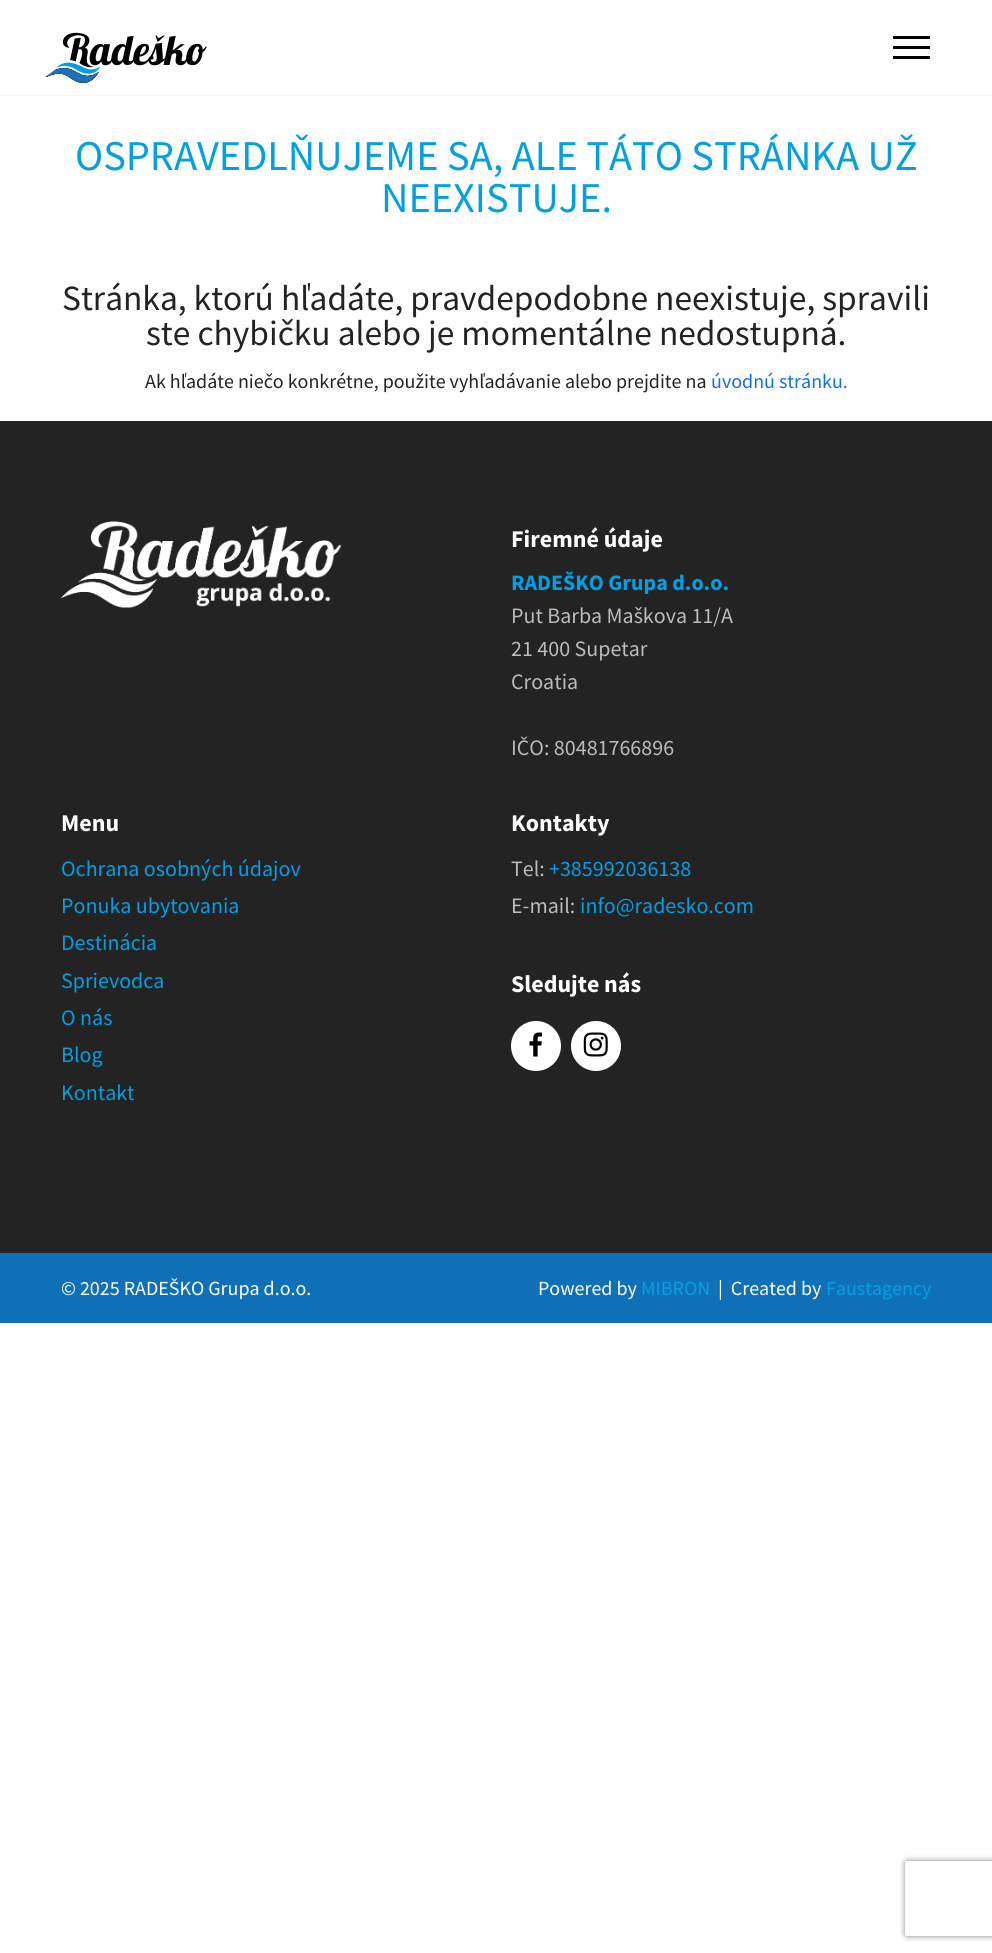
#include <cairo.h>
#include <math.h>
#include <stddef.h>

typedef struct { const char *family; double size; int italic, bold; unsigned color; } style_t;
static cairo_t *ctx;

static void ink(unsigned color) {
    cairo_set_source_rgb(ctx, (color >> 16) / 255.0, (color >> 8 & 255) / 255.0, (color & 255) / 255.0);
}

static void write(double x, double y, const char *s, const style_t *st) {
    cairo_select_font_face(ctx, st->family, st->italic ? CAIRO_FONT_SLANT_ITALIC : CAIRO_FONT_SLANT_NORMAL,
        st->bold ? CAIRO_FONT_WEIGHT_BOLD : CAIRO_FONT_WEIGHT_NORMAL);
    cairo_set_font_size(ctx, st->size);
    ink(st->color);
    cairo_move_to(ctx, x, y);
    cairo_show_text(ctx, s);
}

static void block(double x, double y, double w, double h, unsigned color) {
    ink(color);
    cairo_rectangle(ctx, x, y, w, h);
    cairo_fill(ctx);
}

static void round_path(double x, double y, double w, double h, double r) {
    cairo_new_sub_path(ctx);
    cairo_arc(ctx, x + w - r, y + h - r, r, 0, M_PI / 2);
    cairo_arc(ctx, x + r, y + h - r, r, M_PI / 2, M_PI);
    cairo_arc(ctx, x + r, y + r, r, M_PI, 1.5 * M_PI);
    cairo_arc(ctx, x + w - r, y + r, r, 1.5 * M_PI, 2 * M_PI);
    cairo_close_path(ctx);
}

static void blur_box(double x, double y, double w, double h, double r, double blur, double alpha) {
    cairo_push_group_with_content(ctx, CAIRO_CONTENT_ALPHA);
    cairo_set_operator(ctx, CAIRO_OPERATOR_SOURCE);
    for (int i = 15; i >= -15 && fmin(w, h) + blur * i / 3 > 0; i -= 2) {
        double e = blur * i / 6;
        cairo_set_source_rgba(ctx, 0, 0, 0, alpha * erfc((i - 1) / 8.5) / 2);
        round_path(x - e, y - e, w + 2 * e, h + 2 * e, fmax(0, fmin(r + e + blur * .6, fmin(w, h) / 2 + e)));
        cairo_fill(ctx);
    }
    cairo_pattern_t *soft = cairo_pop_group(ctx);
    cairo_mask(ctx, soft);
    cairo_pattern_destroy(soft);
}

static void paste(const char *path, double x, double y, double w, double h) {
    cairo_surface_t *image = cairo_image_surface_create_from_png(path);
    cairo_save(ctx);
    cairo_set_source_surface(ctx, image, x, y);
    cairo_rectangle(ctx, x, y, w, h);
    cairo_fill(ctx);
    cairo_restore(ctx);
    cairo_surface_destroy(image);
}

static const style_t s1 = {"Source Sans Pro", 42.4, 0, 0, 0x019fe3};
static const style_t s2 = {"Source Sans Pro", 35.4, 0, 0, 0x232323};
static const style_t s3 = {"Source Sans Pro", 20, 0, 0, 0x232323};
static const style_t s4 = {"Source Sans Pro", 20, 0, 0, 0x0d6efd};
static const style_t s5 = {"Source Sans Pro", 24, 0, 1, 0xffffff};
static const style_t s6 = {"Source Sans Pro", 22, 0, 1, 0x019fe3};
static const style_t s7 = {"Source Sans Pro", 22, 0, 0, 0xbbbbbb};
static const style_t s8 = {"Source Sans Pro", 22, 0, 0, 0x019fe3};
static const style_t s9 = {"Source Sans Pro", 20, 0, 0, 0xffffff};
static const style_t s10 = {"Source Sans Pro", 20, 0, 0, 0x019fe3};

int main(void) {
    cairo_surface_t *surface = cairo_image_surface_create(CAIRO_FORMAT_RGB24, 992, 1953);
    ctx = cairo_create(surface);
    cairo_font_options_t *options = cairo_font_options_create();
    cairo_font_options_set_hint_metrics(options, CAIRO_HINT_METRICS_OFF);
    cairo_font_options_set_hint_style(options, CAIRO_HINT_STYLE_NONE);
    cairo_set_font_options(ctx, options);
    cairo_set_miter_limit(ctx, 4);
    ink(0xffffff);
    cairo_paint(ctx);
    block(0, 95, 992, 1, 0xf5f5f5);
    paste("pic1.png", 45, 32, 162, 51);
    block(893, 36, 37, 3, 0x000000);
    block(893, 46, 37, 3, 0x000000);
    block(893, 56, 37, 3, 0x000000);
    write(75, 170, "OSPRAVEDLŇUJEME SA, ALE TÁTO STRÁNKA UŽ", &s1);
    write(381, 212, "NEEXISTUJE.", &s1);
    write(62, 310, "Stránka, ktorú hľadáte, pravdepodobne neexistuje, spravili", &s2);
    write(146, 345, "ste chybičku alebo je momentálne nedostupná.", &s2);
    write(145, 388, "Ak hľadáte niečo konkrétne, použite vyhľadávanie alebo prejdite na", &s3);
    write(711, 388, "úvodnú stránku.", &s4);
    block(0, 421, 992, 832, 0x232323);
    paste("pic2.png", 61, 521, 281, 87);
    write(511, 547, "Firemné údaje", &s5);
    write(511, 590, "RADEŠKO Grupa d.o.o.", &s6);
    write(511, 623, "Put Barba Maškova 11/A", &s7);
    write(511, 656, "21 400 Supetar", &s7);
    write(511, 689, "Croatia", &s7);
    write(511, 755, "IČO: 80481766896", &s7);
    write(61, 831, "Menu", &s5);
    write(61, 876, "Ochrana osobných údajov", &s8);
    write(61, 913, "Ponuka ubytovania", &s8);
    write(61, 950, "Destinácia", &s8);
    write(61, 988, "Sprievodca", &s8);
    write(61, 1025, "O nás", &s8);
    write(61, 1062, "Blog", &s8);
    write(61, 1100, "Kontakt", &s8);
    write(511, 831, "Kontakty", &s5);
    write(511, 876, "Tel:", &s7);
    write(549, 876, "+385992036138", &s8);
    write(511, 913, "E-mail:", &s7);
    write(580, 913, "info@radesko.com", &s8);
    write(511, 992, "Sledujte nás", &s5);
    cairo_new_path(ctx);
    cairo_arc(ctx, 536, 1046, 25, 0, 2 * M_PI);
    cairo_fill(ctx);
    paste("pic3.png", 529, 1032, 13, 25);
    cairo_arc(ctx, 596, 1046, 25, 0, 2 * M_PI);
    cairo_fill(ctx);
    paste("pic4.png", 583, 1032, 25, 25);
    block(0, 1253, 992, 70, 0x1070b7);
    write(61, 1295, "© 2025 RADEŠKO Grupa d.o.o.", &s9);
    write(538, 1295, "Powered by", &s9);
    write(641, 1295, "MIBRON", &s10);
    write(718, 1295, "|  Created by", &s9);
    write(826, 1295, "Faustagency", &s10);
    cairo_save(ctx);
    cairo_set_fill_rule(ctx, CAIRO_FILL_RULE_EVEN_ODD);
    cairo_new_path(ctx);
    cairo_move_to(ctx, 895, 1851);
    cairo_line_to(ctx, 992, 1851);
    cairo_line_to(ctx, 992, 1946);
    cairo_line_to(ctx, 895, 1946);
    cairo_close_path(ctx);
    cairo_move_to(ctx, 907.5, 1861);
    cairo_line_to(ctx, 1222.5, 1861);
    cairo_curve_to(ctx, 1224, 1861, 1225, 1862, 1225, 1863.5);
    cairo_line_to(ctx, 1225, 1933.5);
    cairo_curve_to(ctx, 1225, 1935, 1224, 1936, 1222.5, 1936);
    cairo_line_to(ctx, 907.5, 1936);
    cairo_curve_to(ctx, 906, 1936, 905, 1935, 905, 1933.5);
    cairo_line_to(ctx, 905, 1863.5);
    cairo_curve_to(ctx, 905, 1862, 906, 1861, 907.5, 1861);
    cairo_close_path(ctx);
    cairo_clip(ctx);
    ink(0x808080);
    blur_box(905, 1861, 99, 75, 2.5, 3, 1);
    cairo_restore(ctx);
    cairo_surface_write_to_png(surface, "screenshot.png");
    cairo_font_options_destroy(options);
    cairo_destroy(ctx);
    cairo_surface_destroy(surface);
    return 0;
}
